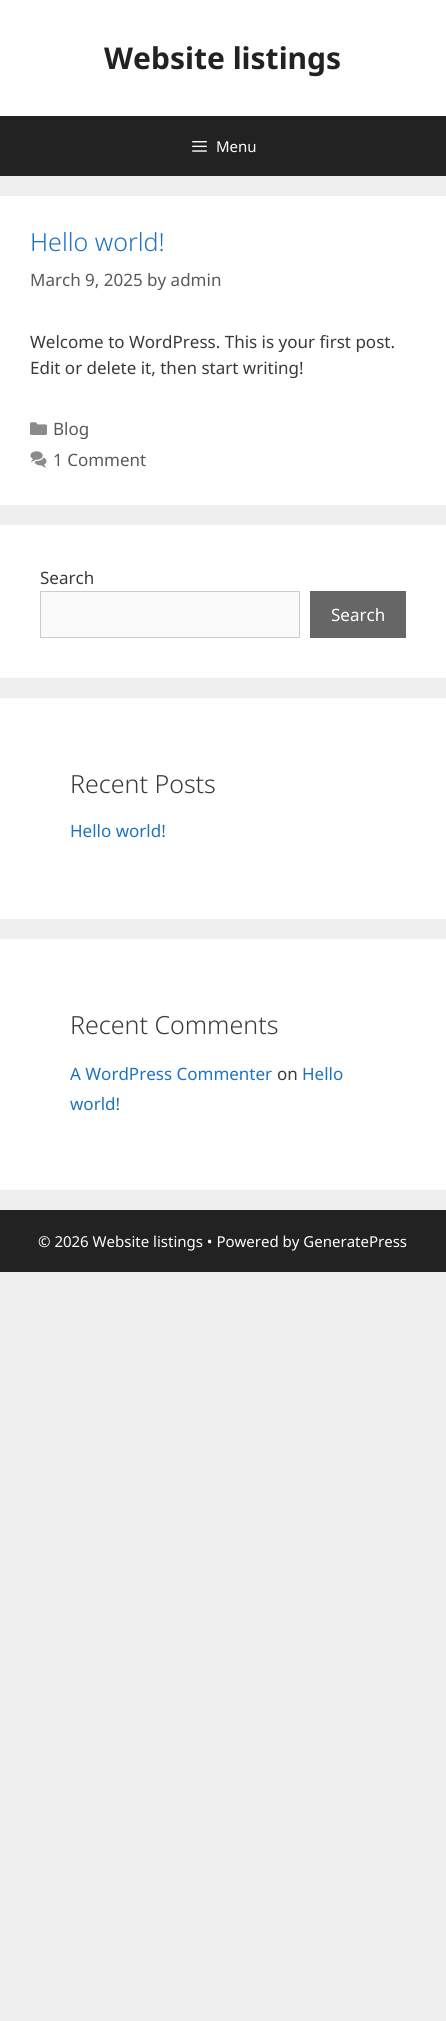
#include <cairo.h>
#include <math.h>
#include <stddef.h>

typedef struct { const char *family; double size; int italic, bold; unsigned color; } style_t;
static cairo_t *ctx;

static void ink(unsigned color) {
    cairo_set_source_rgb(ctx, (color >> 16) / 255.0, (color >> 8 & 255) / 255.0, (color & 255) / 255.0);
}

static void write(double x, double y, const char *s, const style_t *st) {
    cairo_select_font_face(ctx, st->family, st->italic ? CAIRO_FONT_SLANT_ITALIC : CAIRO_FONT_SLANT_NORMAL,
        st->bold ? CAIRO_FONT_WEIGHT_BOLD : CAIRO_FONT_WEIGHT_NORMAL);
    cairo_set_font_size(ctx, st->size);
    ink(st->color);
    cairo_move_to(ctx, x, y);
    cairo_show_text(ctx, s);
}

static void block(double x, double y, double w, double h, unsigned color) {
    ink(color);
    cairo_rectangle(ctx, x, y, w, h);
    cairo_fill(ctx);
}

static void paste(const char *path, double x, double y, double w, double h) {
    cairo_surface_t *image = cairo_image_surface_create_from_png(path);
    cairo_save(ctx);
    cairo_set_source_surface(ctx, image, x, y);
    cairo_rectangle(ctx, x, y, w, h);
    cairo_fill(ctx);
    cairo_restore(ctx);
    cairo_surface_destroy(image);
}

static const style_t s1 = {"Noto Sans", 30, 0, 1, 0x222222};
static const style_t s2 = {"Noto Sans", 15, 0, 0, 0xffffff};
static const style_t s3 = {"Noto Sans Light", 25, 0, 0, 0x1e73be};
static const style_t s4 = {"Noto Sans", 17, 0, 0, 0x595959};
static const style_t s5 = {"Noto Sans", 17, 0, 0, 0x3a3a3a};
static const style_t s6 = {"Noto Sans", 17, 0, 0, 0xffffff};
static const style_t s7 = {"Noto Sans Light", 25, 0, 0, 0x3a3a3a};
static const style_t s8 = {"Noto Sans", 17, 0, 0, 0x1e73be};

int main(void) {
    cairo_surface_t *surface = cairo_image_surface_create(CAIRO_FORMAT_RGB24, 446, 2021);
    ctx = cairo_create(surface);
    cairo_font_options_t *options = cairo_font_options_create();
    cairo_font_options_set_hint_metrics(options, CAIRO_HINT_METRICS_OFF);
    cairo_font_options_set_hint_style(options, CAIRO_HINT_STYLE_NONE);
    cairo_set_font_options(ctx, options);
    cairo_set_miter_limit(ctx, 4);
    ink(0xefefef);
    cairo_paint(ctx);
    block(0, 0, 446, 116, 0xffffff);
    write(104, 69, "Website listings", &s1);
    block(0, 116, 446, 60, 0x222222);
    paste("pic1.png", 192, 141, 15, 11);
    write(216, 152, "Menu", &s2);
    block(0, 196, 446, 309, 0xffffff);
    write(30, 251, "Hello world!", &s3);
    write(30, 286, "March 9, 2025 by admin", &s4);
    write(30, 348, "Welcome to WordPress. This is your first post.", &s5);
    write(30, 374, "Edit or delete it, then start writing!", &s5);
    paste("pic2.png", 30, 422, 17, 13);
    write(53, 435, "Blog", &s4);
    paste("pic3.png", 30, 451, 17, 17);
    write(53, 466, "1 Comment", &s4);
    block(0, 525, 446, 153, 0xffffff);
    write(40, 584, "Search", &s5);
    ink(0xfafafa);
    cairo_rectangle(ctx, 40.5, 591.5, 259, 46);
    cairo_fill_preserve(ctx);
    ink(0xcccccc);
    cairo_set_line_width(ctx, 1);
    cairo_stroke(ctx);
    block(310, 591, 96, 47, 0x666666);
    write(331, 621, "Search", &s6);
    block(0, 698, 446, 221, 0xffffff);
    write(70, 793, "Recent Posts", &s7);
    write(70, 837, "Hello world!", &s8);
    block(0, 939, 446, 251, 0xffffff);
    write(70, 1034, "Recent Comments", &s7);
    write(70, 1080, "A WordPress Commenter", &s8);
    write(277, 1080, "on", &s5);
    write(302, 1080, "Hello", &s8);
    write(70, 1110, "world!", &s8);
    block(0, 1210, 446, 62, 0x222222);
    write(38, 1247, "© 2026 Website listings • Powered by GeneratePress", &s2);
    cairo_surface_write_to_png(surface, "screenshot.png");
    cairo_font_options_destroy(options);
    cairo_destroy(ctx);
    cairo_surface_destroy(surface);
    return 0;
}
